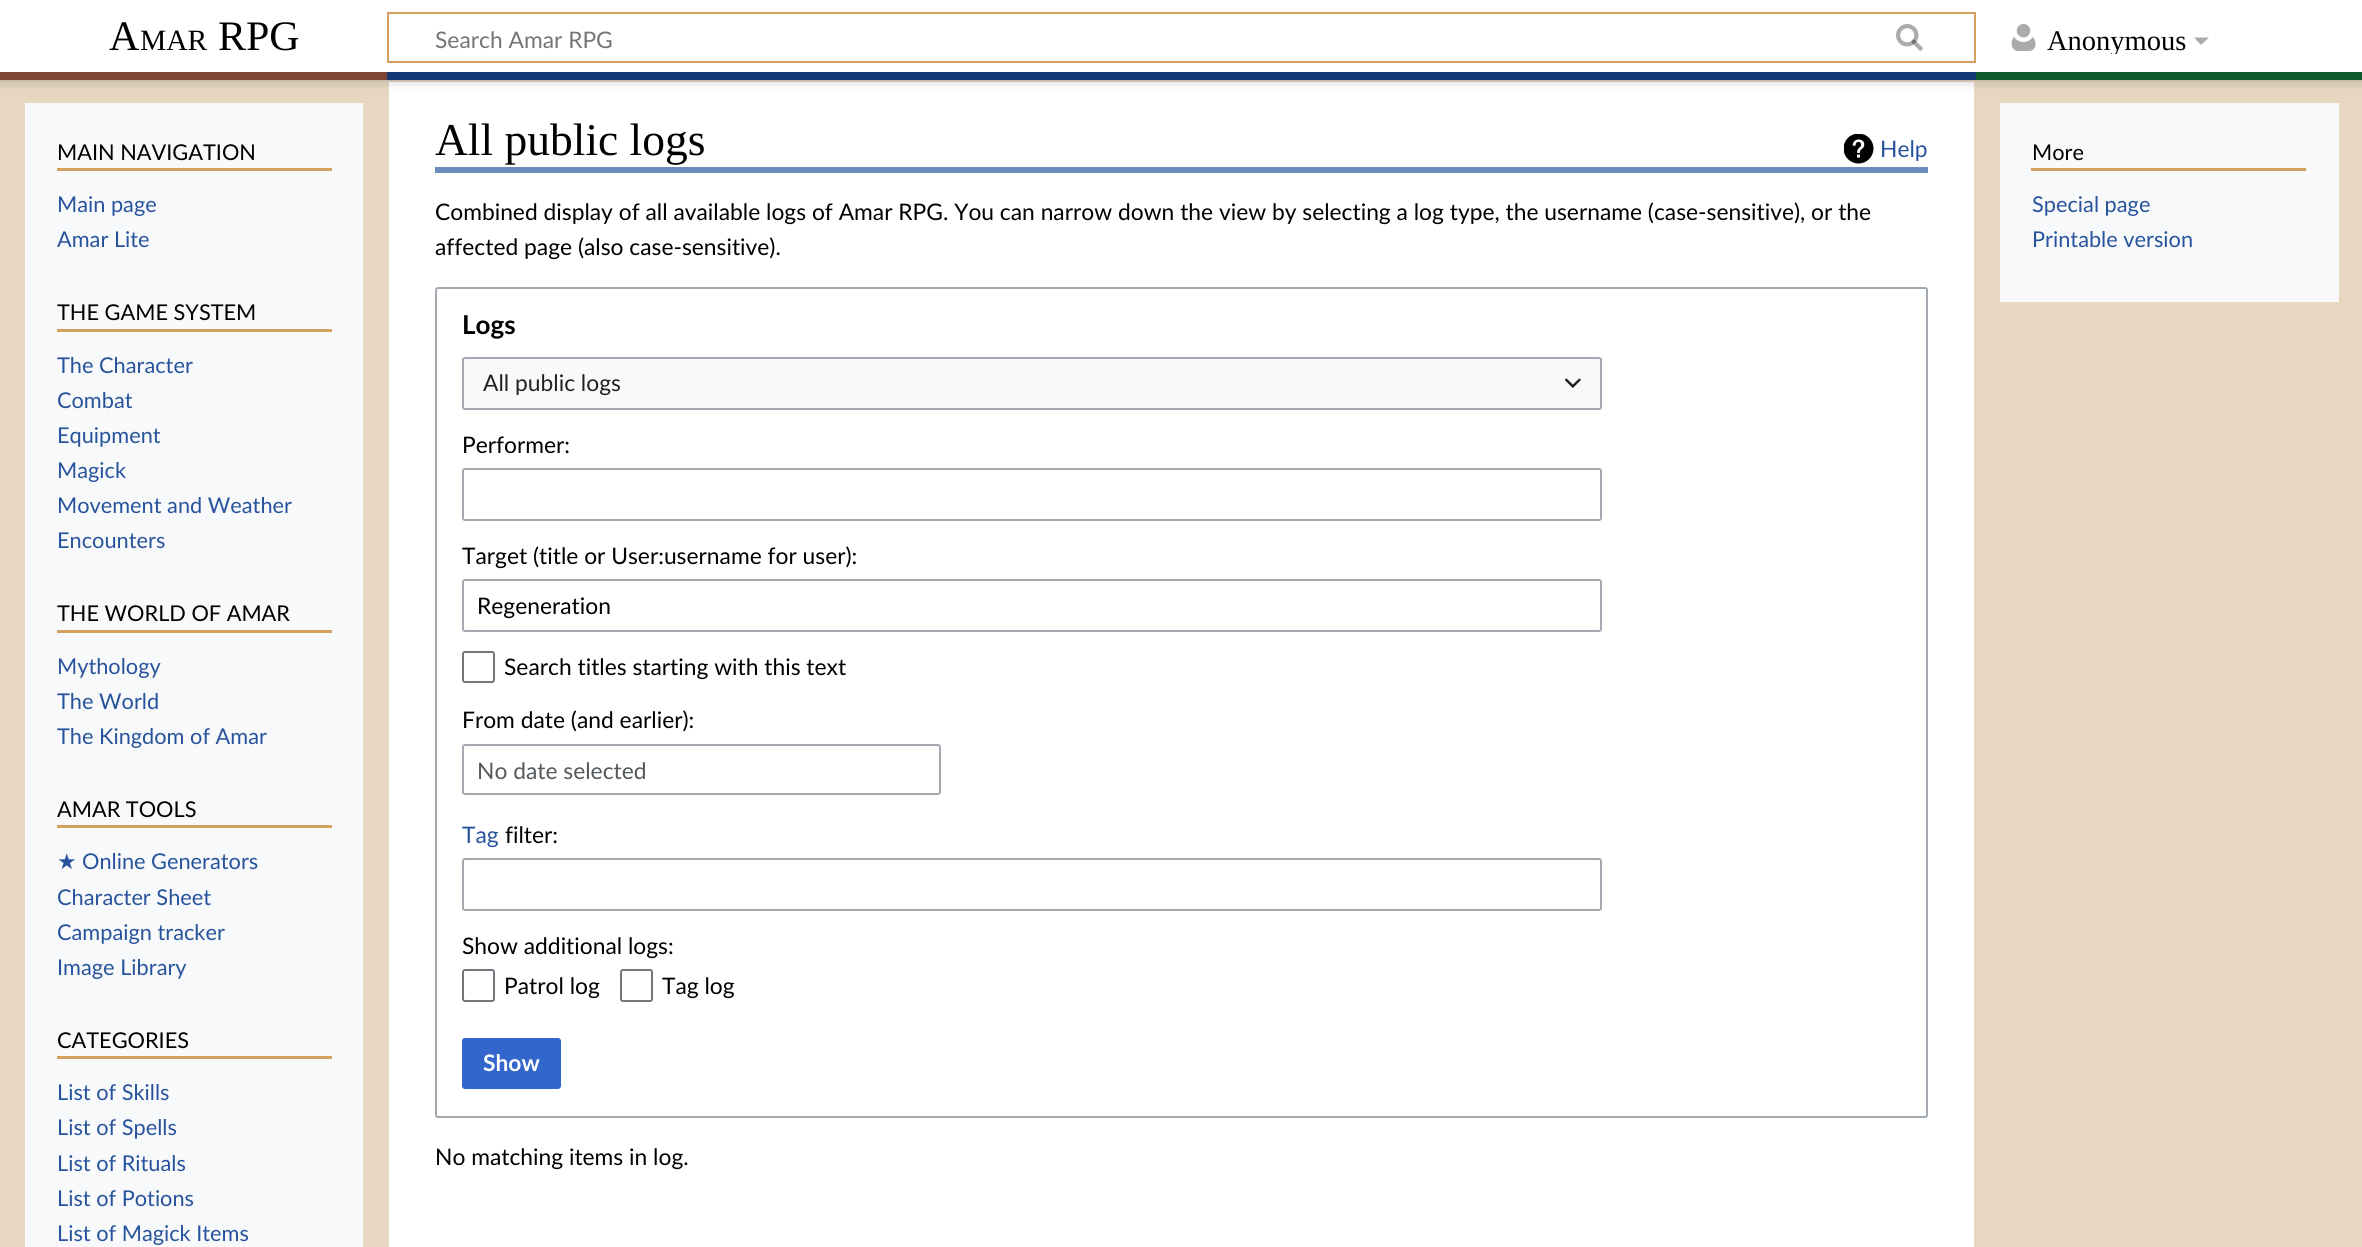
#include <cairo.h>
#include <math.h>
#include <stddef.h>

typedef struct { const char *family; double size; int italic, bold; unsigned color; } style_t;
static cairo_t *ctx;

static void ink(unsigned color) {
    cairo_set_source_rgb(ctx, (color >> 16) / 255.0, (color >> 8 & 255) / 255.0, (color & 255) / 255.0);
}

static void write(double x, double y, const char *s, const style_t *st) {
    cairo_select_font_face(ctx, st->family, st->italic ? CAIRO_FONT_SLANT_ITALIC : CAIRO_FONT_SLANT_NORMAL,
        st->bold ? CAIRO_FONT_WEIGHT_BOLD : CAIRO_FONT_WEIGHT_NORMAL);
    cairo_set_font_size(ctx, st->size);
    ink(st->color);
    cairo_move_to(ctx, x, y);
    cairo_show_text(ctx, s);
}

static void block(double x, double y, double w, double h, unsigned color) {
    ink(color);
    cairo_rectangle(ctx, x, y, w, h);
    cairo_fill(ctx);
}

static void round_path(double x, double y, double w, double h, double r) {
    cairo_new_sub_path(ctx);
    cairo_arc(ctx, x + w - r, y + h - r, r, 0, M_PI / 2);
    cairo_arc(ctx, x + r, y + h - r, r, M_PI / 2, M_PI);
    cairo_arc(ctx, x + r, y + r, r, M_PI, 1.5 * M_PI);
    cairo_arc(ctx, x + w - r, y + r, r, 1.5 * M_PI, 2 * M_PI);
    cairo_close_path(ctx);
}

static void blur_box(double x, double y, double w, double h, double r, double blur, double alpha) {
    cairo_push_group_with_content(ctx, CAIRO_CONTENT_ALPHA);
    cairo_set_operator(ctx, CAIRO_OPERATOR_SOURCE);
    for (int i = 15; i >= -15 && fmin(w, h) + blur * i / 3 > 0; i -= 2) {
        double e = blur * i / 6;
        cairo_set_source_rgba(ctx, 0, 0, 0, alpha * erfc((i - 1) / 8.5) / 2);
        round_path(x - e, y - e, w + 2 * e, h + 2 * e, fmax(0, fmin(r + e + blur * .6, fmin(w, h) / 2 + e)));
        cairo_fill(ctx);
    }
    cairo_pattern_t *soft = cairo_pop_group(ctx);
    cairo_mask(ctx, soft);
    cairo_pattern_destroy(soft);
}

static void paste(const char *path, double x, double y, double w, double h) {
    cairo_surface_t *image = cairo_image_surface_create_from_png(path);
    cairo_save(ctx);
    cairo_set_source_surface(ctx, image, x, y);
    cairo_rectangle(ctx, x, y, w, h);
    cairo_fill(ctx);
    cairo_restore(ctx);
    cairo_surface_destroy(image);
}

static const style_t s1 = {"Liberation Serif", 42, 0, 0, 0x000000};
static const style_t s2 = {"Liberation Serif", 29.5, 0, 0, 0x000000};
static const style_t s3 = {"Lato", 22.8, 0, 0, 0x757575};
static const style_t s4 = {"Liberation Serif", 28.5, 0, 0, 0x000000};
static const style_t s5 = {"Lato", 21.75, 0, 0, 0x000000};
static const style_t s6 = {"Lato", 21.75, 0, 0, 0x27539d};
static const style_t s7 = {"DejaVu Sans", 21.75, 0, 0, 0x27539d};
static const style_t s8 = {"Liberation Serif", 45.5, 0, 0, 0x000000};
static const style_t s9 = {"Lato", 22.8, 0, 0, 0x27539d};
static const style_t s10 = {"Lato", 22.8, 0, 0, 0x000000};
static const style_t s11 = {"Lato", 26, 0, 1, 0x000000};
static const style_t s12 = {"Lato", 22.8, 0, 0, 0x222222};
static const style_t s13 = {"Lato", 22.8, 0, 0, 0x54595d};
static const style_t s14 = {"Lato", 22.8, 0, 1, 0xffffff};

int main(void) {
    cairo_surface_t *surface = cairo_image_surface_create(CAIRO_FORMAT_RGB24, 2362, 1247);
    ctx = cairo_create(surface);
    cairo_font_options_t *options = cairo_font_options_create();
    cairo_font_options_set_hint_metrics(options, CAIRO_HINT_METRICS_OFF);
    cairo_font_options_set_hint_style(options, CAIRO_HINT_STYLE_NONE);
    cairo_set_font_options(ctx, options);
    cairo_set_miter_limit(ctx, 4);
    ink(0xe7d7c1);
    cairo_paint(ctx);
    block(389, 82, 1585, 1165, 0xffffff);
    ink(0x000000);
    blur_box(0, 72, 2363, 8, 0, 1.5, 0.2);
    blur_box(-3, 74, 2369, 13, 0, 2, 0.07);
    block(0, 0, 2362, 72, 0xffffff);
    write(109, 50, "A", &s1);
    write(140, 50, "MAR", &s2);
    write(218, 50, "RPG", &s1);
    cairo_rectangle(ctx, 388, 13, 1587, 49);
    ink(0xd4a05f);
    cairo_stroke(ctx);
    write(435, 48, "Search Amar RPG", &s3);
    paste("pic1.png", 1896, 24, 27, 27);
    paste("pic2.png", 2011, 24, 25, 27);
    cairo_save(ctx);
    cairo_rectangle(ctx, 2046, 26, 140, 28);
    cairo_clip(ctx);
    write(2047, 50, "Anonymous", &s4);
    cairo_restore(ctx);
    ink(0xababab);
    cairo_new_path(ctx);
    cairo_move_to(ctx, 2209, 37.5);
    cairo_line_to(ctx, 2201, 45);
    cairo_line_to(ctx, 2194, 37.5);
    cairo_close_path(ctx);
    cairo_fill(ctx);
    block(0, 72, 387, 8, 0x7d4733);
    block(387, 72, 1589, 8, 0x153975);
    block(1976, 72, 386, 8, 0x0e5a2c);
    block(25, 103, 338, 1144, 0xf8f9fa);
    block(57, 168, 275, 3, 0xd4a05f);
    write(57, 160, "MAIN NAVIGATION", &s5);
    write(57, 212, "Main page", &s6);
    write(57, 247, "Amar Lite", &s6);
    block(57, 329, 275, 3, 0xd4a05f);
    write(57, 320, "THE GAME SYSTEM", &s5);
    write(57, 373, "The Character", &s6);
    write(57, 408, "Combat", &s6);
    write(57, 443, "Equipment", &s6);
    write(57, 478, "Magick", &s6);
    write(57, 513, "Movement and Weather", &s6);
    write(57, 548, "Encounters", &s6);
    block(57, 630, 275, 3, 0xd4a05f);
    write(57, 621, "THE WORLD OF AMAR", &s5);
    write(57, 674, "Mythology", &s6);
    write(57, 709, "The World", &s6);
    write(57, 744, "The Kingdom of Amar", &s6);
    block(57, 825, 275, 3, 0xd4a05f);
    write(57, 817, "AMAR TOOLS", &s5);
    write(57, 869, "★", &s7);
    write(82, 869, "Online Generators", &s6);
    write(57, 905, "Character Sheet", &s6);
    write(57, 940, "Campaign tracker", &s6);
    write(57, 975, "Image Library", &s6);
    block(57, 1056, 275, 3, 0xd4a05f);
    write(57, 1048, "CATEGORIES", &s5);
    write(57, 1100, "List of Skills", &s6);
    write(57, 1135, "List of Spells", &s6);
    write(57, 1171, "List of Rituals", &s6);
    write(57, 1206, "List of Potions", &s6);
    write(57, 1241, "List of Magick Items", &s6);
    block(435, 167, 1493, 6, 0x6d8bbd);
    write(435, 155, "All public logs", &s8);
    paste("pic3.png", 1844, 134, 30, 30);
    write(1880, 157, "Help", &s9);
    write(435, 220, "Combined display of all available logs of Amar RPG. You can narrow down the view by selecting a log type, the username (case-sensitive), or the", &s10);
    write(435, 255, "affected page (also case-sensitive).", &s10);
    round_path(436, 288, 1491, 829, 2);
    ink(0xa2a9b1);
    cairo_stroke(ctx);
    write(462, 334, "Logs", &s11);
    block(462, 357, 1140, 53, 0xf8f9fa);
    round_path(463, 358, 1138, 51, 2);
    ink(0xa2a9b1);
    cairo_stroke(ctx);
    write(483, 391, "All public logs", &s12);
    paste("pic4.png", 1564, 378, 17, 10);
    write(462, 453, "Performer:", &s10);
    round_path(463, 469, 1138, 51, 2);
    ink(0xa2a9b1);
    cairo_stroke(ctx);
    write(462, 564, "Target (title or User:username for user):", &s10);
    round_path(463, 580, 1138, 51, 2);
    ink(0xa2a9b1);
    cairo_stroke(ctx);
    write(477, 614, "Regeneration", &s10);
    round_path(463, 652, 31, 30, 2);
    ink(0x72777d);
    cairo_stroke(ctx);
    write(504, 675, "Search titles starting with this text", &s10);
    write(462, 728, "From date (and earlier):", &s10);
    round_path(463, 745, 477, 49, 2);
    ink(0xa2a9b1);
    cairo_stroke(ctx);
    write(477, 779, "No date selected", &s13);
    write(462, 843, "Tag", &s9);
    write(505, 843, "filter:", &s10);
    round_path(463, 859, 1138, 51, 2);
    ink(0xa2a9b1);
    cairo_stroke(ctx);
    write(462, 954, "Show additional logs:", &s10);
    round_path(463, 970, 31, 31, 2);
    ink(0x72777d);
    cairo_stroke(ctx);
    write(504, 994, "Patrol log", &s10);
    round_path(621, 970, 31, 31, 2);
    ink(0x72777d);
    cairo_stroke(ctx);
    write(662, 994, "Tag log", &s10);
    ink(0x3366cc);
    round_path(463, 1039, 97, 49, 2);
    cairo_fill_preserve(ctx);
    cairo_stroke(ctx);
    write(483, 1071, "Show", &s14);
    write(435, 1165, "No matching items in log.", &s10);
    block(2000, 103, 339, 199, 0xf8f9fa);
    block(2031, 168, 275, 3, 0xd4a05f);
    write(2032, 160, "More", &s5);
    write(2032, 212, "Special page", &s6);
    write(2032, 247, "Printable version", &s6);
    cairo_surface_write_to_png(surface, "screenshot.png");
    cairo_font_options_destroy(options);
    cairo_destroy(ctx);
    cairo_surface_destroy(surface);
    return 0;
}
